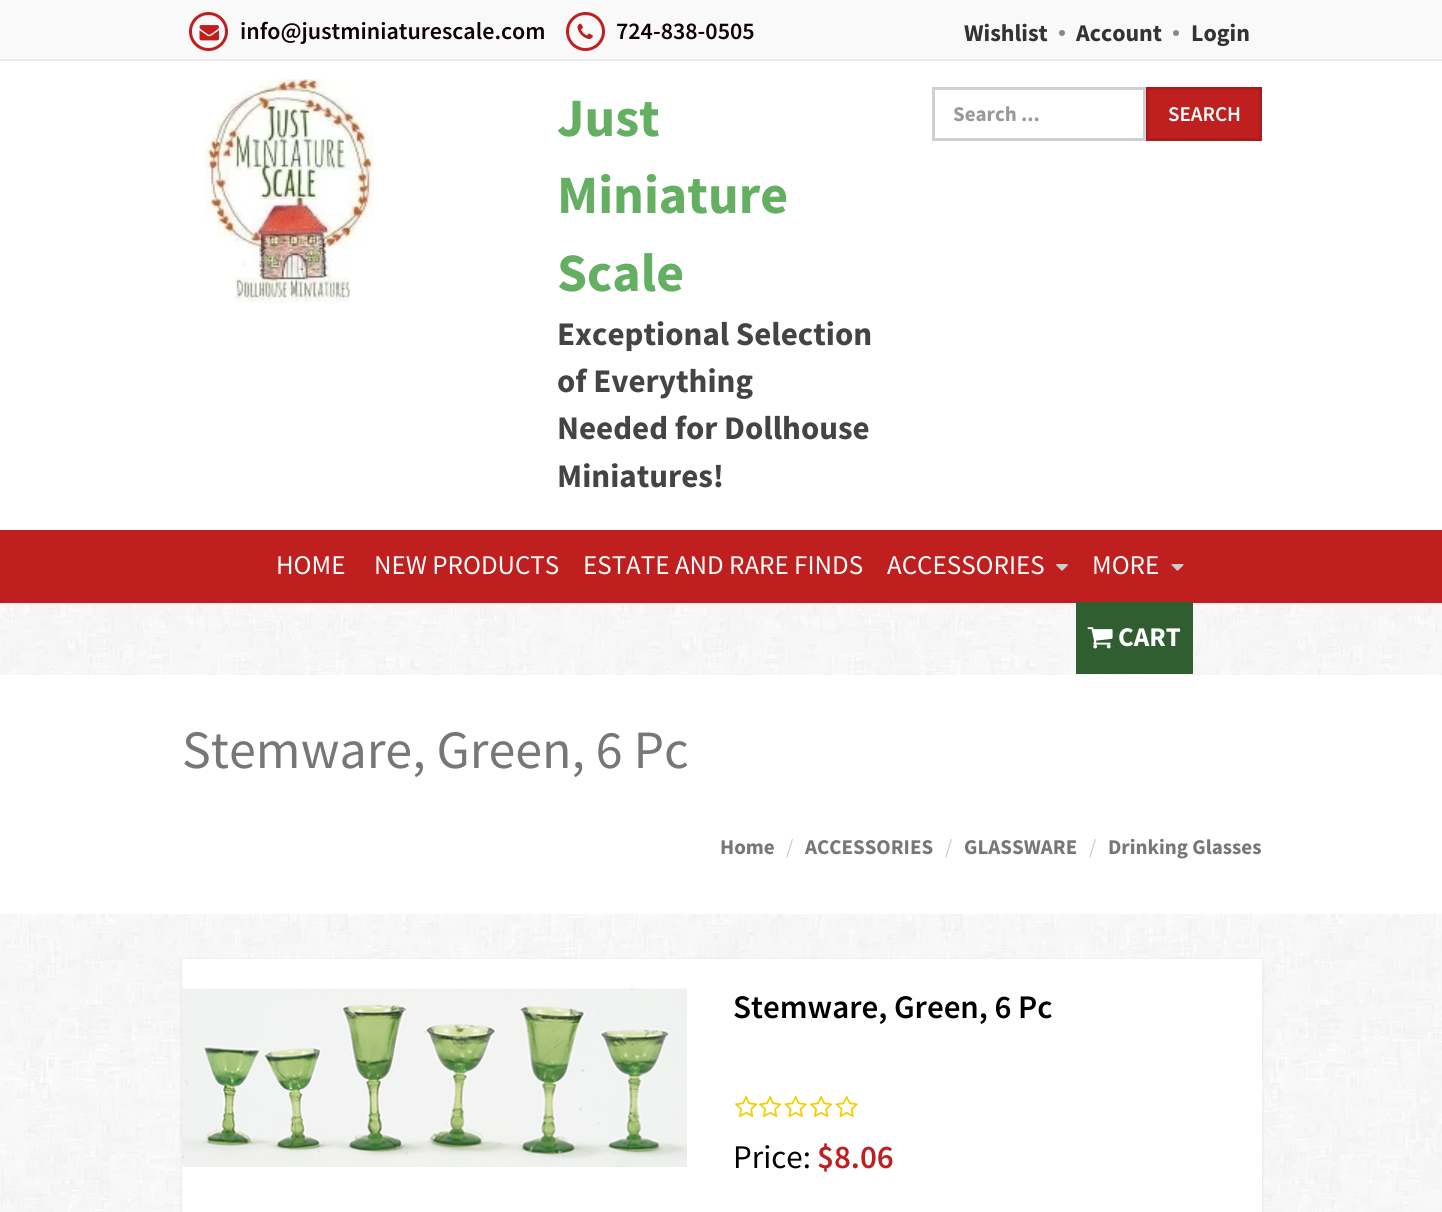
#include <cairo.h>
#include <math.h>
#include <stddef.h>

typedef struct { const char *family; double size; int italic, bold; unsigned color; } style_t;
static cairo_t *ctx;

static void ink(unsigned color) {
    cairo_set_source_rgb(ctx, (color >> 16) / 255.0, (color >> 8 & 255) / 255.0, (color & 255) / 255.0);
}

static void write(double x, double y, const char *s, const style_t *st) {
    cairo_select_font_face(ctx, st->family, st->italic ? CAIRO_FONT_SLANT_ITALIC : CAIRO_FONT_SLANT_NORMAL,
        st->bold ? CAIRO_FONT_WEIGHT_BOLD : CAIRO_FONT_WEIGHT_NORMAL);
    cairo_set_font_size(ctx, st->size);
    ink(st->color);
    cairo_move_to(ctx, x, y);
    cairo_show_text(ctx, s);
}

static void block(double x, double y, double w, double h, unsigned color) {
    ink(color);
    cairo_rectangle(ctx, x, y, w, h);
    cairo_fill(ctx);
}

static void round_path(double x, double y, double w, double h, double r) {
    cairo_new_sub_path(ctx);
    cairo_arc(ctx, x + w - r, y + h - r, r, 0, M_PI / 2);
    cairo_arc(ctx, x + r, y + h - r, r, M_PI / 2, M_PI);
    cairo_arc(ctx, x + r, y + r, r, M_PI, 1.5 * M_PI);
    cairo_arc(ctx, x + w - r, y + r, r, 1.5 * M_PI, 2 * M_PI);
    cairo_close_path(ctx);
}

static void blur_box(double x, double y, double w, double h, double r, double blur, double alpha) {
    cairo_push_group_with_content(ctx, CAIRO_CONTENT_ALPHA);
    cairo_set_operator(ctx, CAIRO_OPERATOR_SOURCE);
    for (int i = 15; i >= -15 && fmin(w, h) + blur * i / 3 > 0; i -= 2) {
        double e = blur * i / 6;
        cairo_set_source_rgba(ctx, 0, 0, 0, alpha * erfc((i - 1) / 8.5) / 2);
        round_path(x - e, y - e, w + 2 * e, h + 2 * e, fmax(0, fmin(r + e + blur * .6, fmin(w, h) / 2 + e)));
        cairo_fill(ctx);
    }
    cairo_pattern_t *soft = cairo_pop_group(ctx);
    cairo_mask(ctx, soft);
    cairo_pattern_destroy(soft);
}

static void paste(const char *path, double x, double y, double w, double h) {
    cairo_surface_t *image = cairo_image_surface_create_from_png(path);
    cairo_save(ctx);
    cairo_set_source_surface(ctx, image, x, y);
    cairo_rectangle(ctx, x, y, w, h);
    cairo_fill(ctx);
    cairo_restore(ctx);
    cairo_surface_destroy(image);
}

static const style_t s1 = {"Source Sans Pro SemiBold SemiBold", 24, 0, 0, 0x0e0202};
static const style_t s2 = {"Source Sans Pro", 24, 0, 1, 0x333333};
static const style_t s3 = {"Source Sans Pro", 54, 0, 1, 0x64af62};
static const style_t s4 = {"Source Sans Pro", 33, 0, 1, 0x444444};
static const style_t s5 = {"Source Sans Pro", 21, 0, 1, 0x999999};
static const style_t s6 = {"Source Sans Pro SemiBold SemiBold", 21, 0, 0, 0xffffff};
static const style_t s7 = {"Source Sans Pro", 27, 0, 0, 0xffffff};
static const style_t s8 = {"Source Sans Pro", 27, 0, 1, 0xffffff};
static const style_t s9 = {"Source Sans Pro", 54, 0, 0, 0x777777};
static const style_t s10 = {"Source Sans Pro", 21, 0, 1, 0x777777};
static const style_t s11 = {"Source Sans Pro", 21, 0, 0, 0xcccccc};
static const style_t s12 = {"Source Sans Pro SemiBold SemiBold", 33, 0, 0, 0x000000};
static const style_t s13 = {"Source Sans Pro", 33, 0, 0, 0x000000};
static const style_t s14 = {"Source Sans Pro SemiBold SemiBold", 33, 0, 0, 0xbf1f1f};

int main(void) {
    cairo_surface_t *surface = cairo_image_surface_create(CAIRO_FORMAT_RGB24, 1442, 1212);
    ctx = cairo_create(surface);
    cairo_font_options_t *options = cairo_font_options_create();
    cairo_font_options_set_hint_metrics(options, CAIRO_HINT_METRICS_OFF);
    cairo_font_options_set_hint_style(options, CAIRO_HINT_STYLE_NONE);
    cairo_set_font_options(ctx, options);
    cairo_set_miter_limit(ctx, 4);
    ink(0xffffff);
    cairo_paint(ctx);
    paste("pic1.png", 0, 605, 1442, 607);
    block(0, 0, 1442, 59, 0xf9f9f9);
    block(0, 59, 1442, 2, 0xebebeb);
    cairo_arc(ctx, 208.5, 31.5, 18, 0, 2 * M_PI);
    ink(0xbf1f1f);
    cairo_set_line_width(ctx, 3);
    cairo_stroke(ctx);
    paste("pic2.png", 199, 25, 20, 16);
    write(240, 39, "info@justminiaturescale.com", &s1);
    cairo_new_path(ctx);
    cairo_arc(ctx, 585.5, 31.5, 18, 0, 2 * M_PI);
    ink(0xbf1f1f);
    cairo_stroke(ctx);
    paste("pic3.png", 577, 23, 16, 16);
    write(616, 39, "724-838-0505", &s1);
    write(964, 41, "Wishlist", &s2);
    ink(0x888888);
    cairo_new_path(ctx);
    cairo_arc(ctx, 1062, 33, 3, 0, 2 * M_PI);
    cairo_fill(ctx);
    write(1076, 41, "Account", &s2);
    ink(0x888888);
    cairo_new_path(ctx);
    cairo_arc(ctx, 1176, 33, 3, 0, 2 * M_PI);
    cairo_fill(ctx);
    write(1191, 41, "Login", &s2);
    paste("pic4.png", 205, 79, 169, 225);
    write(557, 136, "Just", &s3);
    write(557, 213, "Miniature", &s3);
    write(557, 291, "Scale", &s3);
    write(557, 345, "Exceptional Selection", &s4);
    write(557, 392, "of Everything", &s4);
    write(557, 439, "Needed for Dollhouse", &s4);
    write(557, 487, "Miniatures!", &s4);
    cairo_rectangle(ctx, 933.5, 88.5, 211, 51);
    ink(0xd0d0d0);
    cairo_stroke(ctx);
    write(953, 121, "Search ...", &s5);
    ink(0xbf1f1f);
    cairo_rectangle(ctx, 1147.5, 88.5, 113, 51);
    cairo_fill_preserve(ctx);
    ink(0xac1c1c);
    cairo_stroke(ctx);
    write(1168, 121, "SEARCH", &s6);
    block(0, 530, 1442, 73, 0xbf1f1f);
    block(0, 603, 1442, 2, 0xebebeb);
    write(276, 574, "HOME", &s7);
    write(374, 574, "NEW PRODUCTS", &s7);
    write(583, 574, "ESTATE AND RARE FINDS", &s7);
    write(887, 574, "ACCESSORIES", &s7);
    paste("pic5.png", 1056, 564, 12, 7);
    write(1092, 574, "MORE", &s7);
    paste("pic6.png", 1171, 564, 13, 7);
    block(1076, 602, 117, 72, 0x315e30);
    paste("pic7.png", 1087, 627, 26, 22);
    write(1118, 646, "CART", &s8);
    block(0, 675, 1442, 239, 0xffffff);
    write(182, 768, "Stemware, Green, 6 Pc", &s9);
    write(720, 854, "Home", &s10);
    write(786, 854, "/", &s11);
    write(805, 854, "ACCESSORIES", &s10);
    write(945, 854, "/", &s11);
    write(964, 854, "GLASSWARE", &s10);
    write(1089, 854, "/", &s11);
    write(1108, 854, "Drinking Glasses", &s10);
    ink(0x000000);
    blur_box(182, 960, 1080, 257, 0, 1.5, 0.1);
    block(182, 959, 1080, 253, 0xffffff);
    paste("pic8.png", 181, 988, 506, 179);
    write(733, 1018, "Stemware, Green, 6 Pc", &s12);
    paste("pic9.png", 735, 1095, 23, 23);
    paste("pic9.png", 759, 1095, 23, 23);
    paste("pic10.png", 784, 1095, 23, 23);
    paste("pic9.png", 810, 1095, 23, 23);
    paste("pic10.png", 835, 1095, 23, 23);
    write(733, 1168, "Price:", &s13);
    write(817, 1168, "$8.06", &s14);
    cairo_surface_write_to_png(surface, "screenshot.png");
    cairo_font_options_destroy(options);
    cairo_destroy(ctx);
    cairo_surface_destroy(surface);
    return 0;
}
